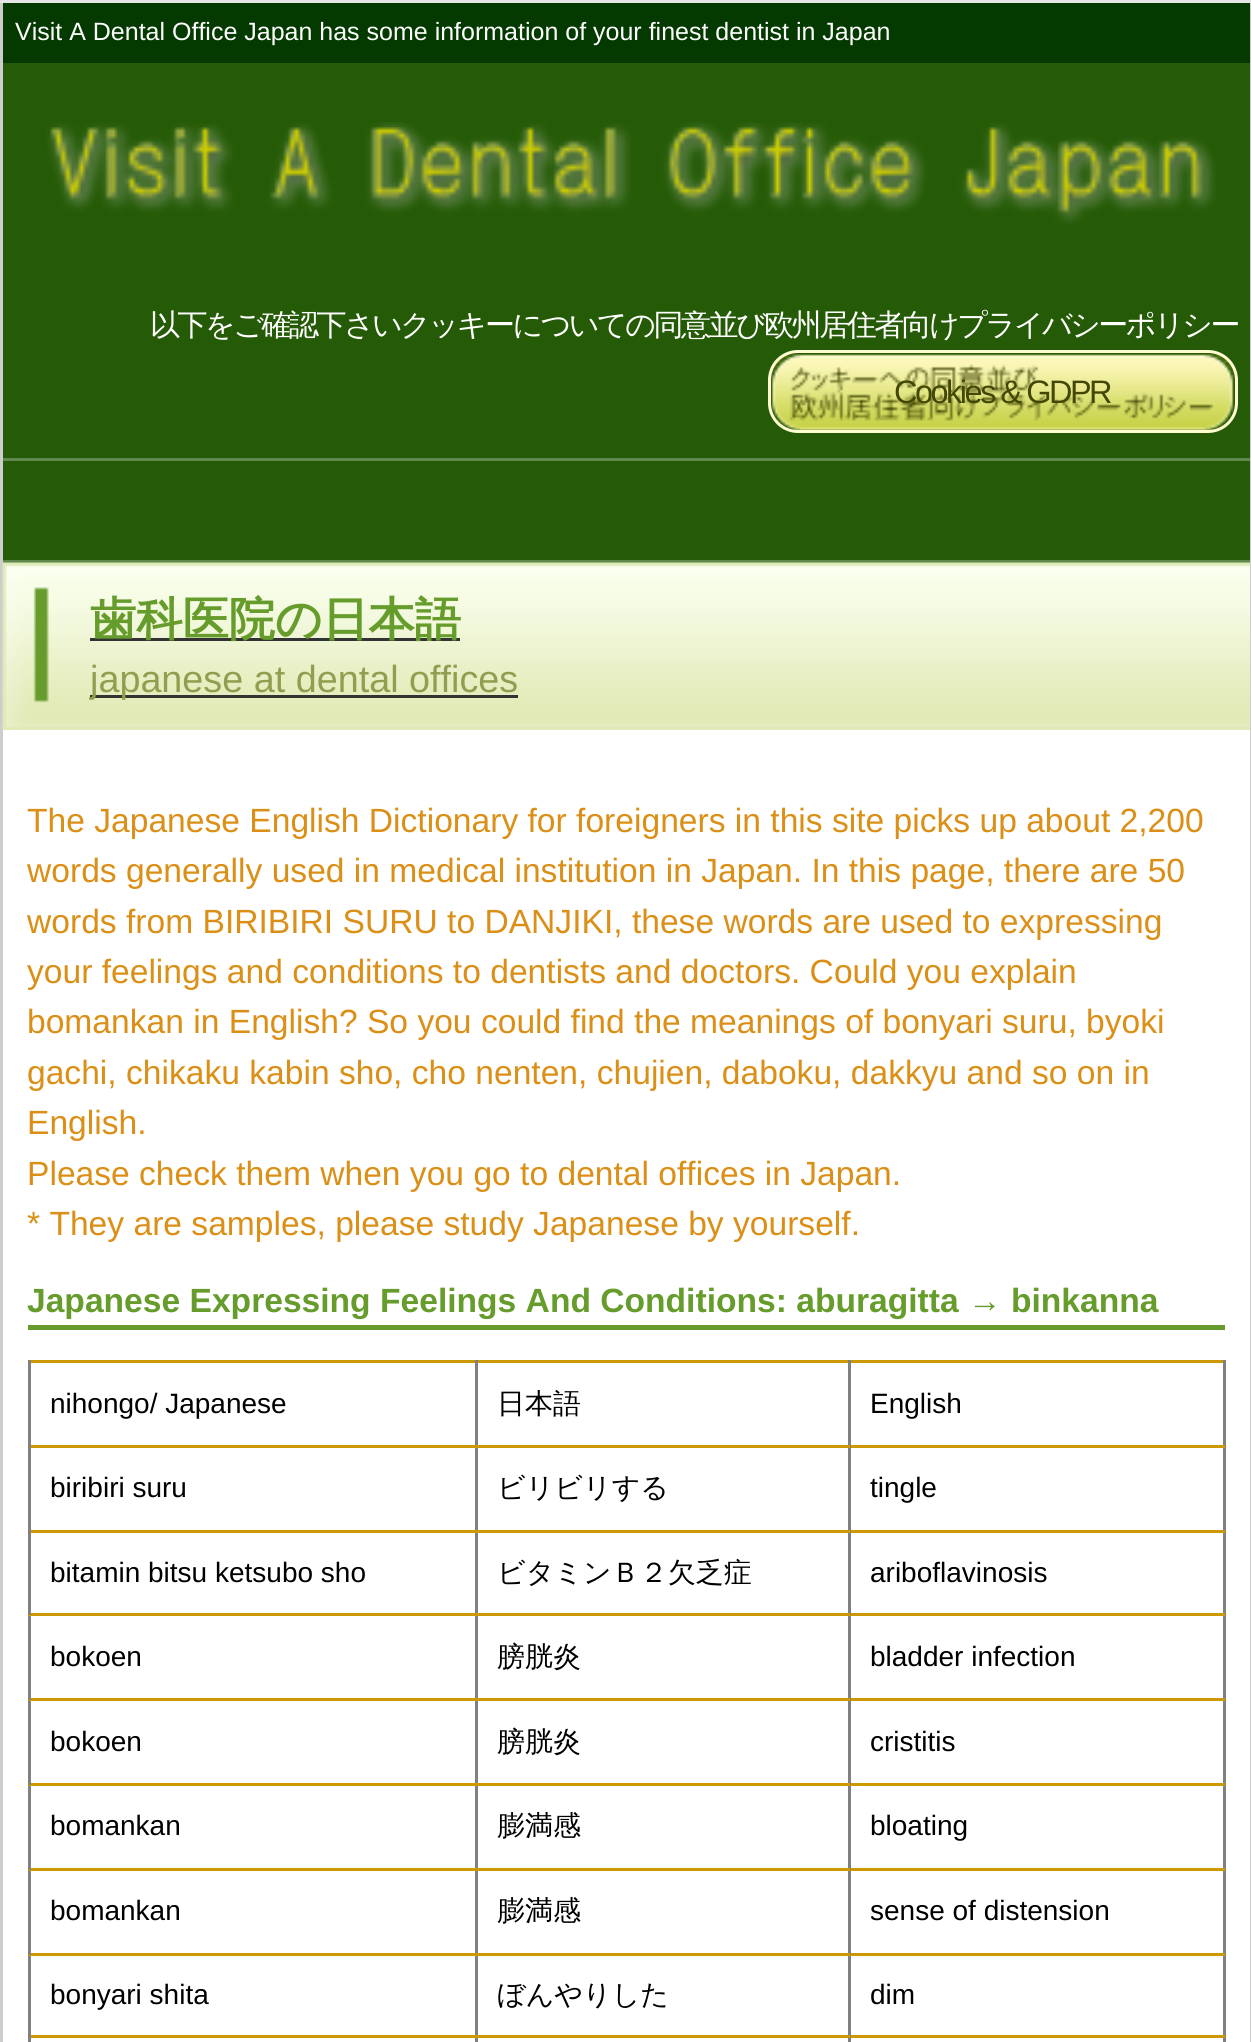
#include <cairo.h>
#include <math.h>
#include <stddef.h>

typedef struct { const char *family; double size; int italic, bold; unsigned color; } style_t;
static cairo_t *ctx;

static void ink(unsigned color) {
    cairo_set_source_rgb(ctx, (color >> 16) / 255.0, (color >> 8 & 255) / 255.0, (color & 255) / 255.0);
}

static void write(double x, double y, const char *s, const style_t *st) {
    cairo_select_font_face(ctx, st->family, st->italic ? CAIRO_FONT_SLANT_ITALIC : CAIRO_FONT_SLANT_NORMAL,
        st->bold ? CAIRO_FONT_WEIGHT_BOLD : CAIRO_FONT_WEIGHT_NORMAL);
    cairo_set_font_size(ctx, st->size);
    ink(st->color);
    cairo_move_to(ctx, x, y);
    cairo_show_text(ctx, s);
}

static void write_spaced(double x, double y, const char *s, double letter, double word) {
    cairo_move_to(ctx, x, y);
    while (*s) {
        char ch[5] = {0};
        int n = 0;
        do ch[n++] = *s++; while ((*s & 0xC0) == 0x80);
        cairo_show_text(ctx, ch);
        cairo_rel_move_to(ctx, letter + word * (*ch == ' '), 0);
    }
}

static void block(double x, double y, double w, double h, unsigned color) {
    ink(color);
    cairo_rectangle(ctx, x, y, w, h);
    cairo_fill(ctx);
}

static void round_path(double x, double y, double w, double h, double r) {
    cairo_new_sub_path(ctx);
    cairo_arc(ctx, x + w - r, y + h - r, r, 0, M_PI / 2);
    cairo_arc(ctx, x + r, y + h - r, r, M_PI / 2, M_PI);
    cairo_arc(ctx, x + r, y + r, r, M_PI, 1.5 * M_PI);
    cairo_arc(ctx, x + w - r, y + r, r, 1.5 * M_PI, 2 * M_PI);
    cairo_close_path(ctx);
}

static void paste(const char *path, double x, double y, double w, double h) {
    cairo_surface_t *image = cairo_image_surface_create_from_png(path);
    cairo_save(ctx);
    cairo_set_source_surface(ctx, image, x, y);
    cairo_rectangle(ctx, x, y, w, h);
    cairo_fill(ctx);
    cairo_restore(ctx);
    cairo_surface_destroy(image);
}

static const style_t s1 = {"Liberation Sans", 25, 0, 0, 0xffffff};
static const style_t s2 = {"WenQuanYi Zen Hei", 46.25, 0, 1, 0x669c2b};
static const style_t s3 = {"Liberation Sans", 37.75, 0, 0, 0x909e50};
static const style_t s4 = {"Liberation Sans", 33.6, 0, 0, 0xdb8f16};
static const style_t s5 = {"Liberation Sans", 33.6, 0, 1, 0x669c2b};
static const style_t s6 = {"Liberation Sans", 28, 0, 0, 0x000000};
static const style_t s7 = {"WenQuanYi Zen Hei Medium", 28, 0, 0, 0x000000};

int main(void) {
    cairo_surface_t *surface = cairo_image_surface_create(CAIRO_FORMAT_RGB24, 1251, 2042);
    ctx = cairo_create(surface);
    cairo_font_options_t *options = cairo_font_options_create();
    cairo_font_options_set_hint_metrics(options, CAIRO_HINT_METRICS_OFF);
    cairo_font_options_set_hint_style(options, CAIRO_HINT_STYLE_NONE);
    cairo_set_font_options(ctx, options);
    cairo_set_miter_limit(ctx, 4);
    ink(0xe5e5e5);
    cairo_paint(ctx);
    block(3, 730, 1247, 1312, 0xffffff);
    block(1250, 3, 1, 2039, 0xcdcdcd);
    block(0, 3, 3, 2039, 0xcdcdcd);
    block(3, 63, 1247, 395, 0x255a06);
    block(3, 3, 1247, 60, 0x043a00);
    write(15, 40, "Visit A Dental Office Japan has some information of your finest dentist in Japan", &s1);
    paste("pic1.png", 47, 122, 1169, 102);
    cairo_select_font_face(ctx, "WenQuanYi Zen Hei Medium", CAIRO_FONT_SLANT_NORMAL, CAIRO_FONT_WEIGHT_NORMAL);
    cairo_set_font_size(ctx, 30);
    write_spaced(150, 335, "以下をご確認下さいクッキーについての同意並び欧州居住者向けプライバシーポリシー", -2.5, 0);
    paste("pic2.png", 770, 352, 465, 81);
    round_path(769.5, 351.5, 467, 80, 28.5);
    ink(0xfffcd1);
    cairo_set_line_width(ctx, 3);
    cairo_stroke(ctx);
    cairo_select_font_face(ctx, "Liberation Sans", CAIRO_FONT_SLANT_NORMAL, CAIRO_FONT_WEIGHT_NORMAL);
    cairo_set_font_size(ctx, 32.5);
    ink(0x424804);
    write_spaced(894, 403, "Cookies & GDPR", -2.5, 0);
    block(3, 461, 1247, 99, 0x255a06);
    block(3, 458, 1247, 3, 0x61884e);
    block(3, 560, 1247, 3, 0x61884e);
    paste("pic3.png", 2, 562, 1248, 168);
    block(90, 638, 370, 3, 0x333333);
    write(90, 635, "歯科医院の日本語", &s2);
    block(90, 695, 428, 3, 0x333333);
    write(90, 692, "japanese at dental offices", &s3);
    write(27, 832, "The Japanese English Dictionary for foreigners in this site picks up about 2,200", &s4);
    write(27, 882, "words generally used in medical institution in Japan. In this page, there are 50", &s4);
    write(27, 933, "words from BIRIBIRI SURU to DANJIKI, these words are used to expressing", &s4);
    write(27, 983, "your feelings and conditions to dentists and doctors. Could you explain", &s4);
    write(27, 1033, "bomankan in English? So you could find the meanings of bonyari suru, byoki", &s4);
    write(27, 1084, "gachi, chikaku kabin sho, cho nenten, chujien, daboku, dakkyu and so on in", &s4);
    write(27, 1134, "English.", &s4);
    write(27, 1185, "Please check them when you go to dental offices in Japan.", &s4);
    write(27, 1235, "* They are samples, please study Japanese by yourself.", &s4);
    block(28, 1325, 1197, 5, 0x669c2b);
    write(27, 1312, "Japanese Expressing Feelings And Conditions: aburagitta → binkanna", &s5);
    block(28, 1360, 1197, 3, 0xcc9900);
    block(1223, 1445, 3, 597, 0x808080);
    block(1223, 1360, 3, 88, 0x808080);
    block(848, 2035, 3, 7, 0x808080);
    block(848, 2035, 377, 3, 0xcc9900);
    block(848, 1953, 3, 85, 0x808080);
    block(848, 1953, 377, 3, 0xcc9900);
    block(848, 1868, 3, 87, 0x808080);
    block(848, 1868, 377, 3, 0xcc9900);
    block(848, 1783, 3, 87, 0x808080);
    block(848, 1783, 377, 3, 0xcc9900);
    block(848, 1698, 3, 87, 0x808080);
    block(848, 1698, 377, 3, 0xcc9900);
    block(848, 1613, 3, 87, 0x808080);
    block(848, 1613, 377, 3, 0xcc9900);
    block(848, 1530, 3, 85, 0x808080);
    block(848, 1530, 377, 3, 0xcc9900);
    block(848, 1445, 3, 88, 0x808080);
    block(848, 1445, 377, 3, 0xcc9900);
    block(848, 1360, 3, 88, 0x808080);
    block(475, 2035, 3, 7, 0x808080);
    block(475, 2035, 375, 3, 0xcc9900);
    block(475, 1953, 3, 85, 0x808080);
    block(475, 1953, 375, 3, 0xcc9900);
    block(475, 1868, 3, 87, 0x808080);
    block(475, 1868, 375, 3, 0xcc9900);
    block(475, 1783, 3, 87, 0x808080);
    block(475, 1783, 375, 3, 0xcc9900);
    block(475, 1698, 3, 87, 0x808080);
    block(475, 1698, 375, 3, 0xcc9900);
    block(475, 1613, 3, 87, 0x808080);
    block(475, 1613, 375, 3, 0xcc9900);
    block(475, 1530, 3, 85, 0x808080);
    block(475, 1530, 375, 3, 0xcc9900);
    block(475, 1445, 3, 88, 0x808080);
    block(475, 1445, 375, 3, 0xcc9900);
    block(475, 1360, 3, 88, 0x808080);
    block(28, 2035, 3, 7, 0x808080);
    block(28, 2035, 450, 3, 0xcc9900);
    block(28, 1953, 3, 85, 0x808080);
    block(28, 1953, 450, 3, 0xcc9900);
    block(28, 1868, 3, 87, 0x808080);
    block(28, 1868, 450, 3, 0xcc9900);
    block(28, 1783, 3, 87, 0x808080);
    block(28, 1783, 450, 3, 0xcc9900);
    block(28, 1698, 3, 87, 0x808080);
    block(28, 1698, 450, 3, 0xcc9900);
    block(28, 1613, 3, 87, 0x808080);
    block(28, 1613, 450, 3, 0xcc9900);
    block(28, 1530, 3, 85, 0x808080);
    block(28, 1530, 450, 3, 0xcc9900);
    block(28, 1445, 3, 88, 0x808080);
    block(28, 1445, 450, 3, 0xcc9900);
    block(28, 1360, 3, 88, 0x808080);
    write(50, 1413, "nihongo/ Japanese", &s6);
    write(497, 1413, "日本語", &s7);
    write(870, 1413, "English", &s6);
    write(50, 1497, "biribiri suru", &s6);
    write(497, 1497, "ビリビリする", &s7);
    write(870, 1497, "tingle", &s6);
    write(50, 1582, "bitamin bitsu ketsubo sho", &s6);
    write(497, 1582, "ビタミンＢ２欠乏症", &s7);
    write(870, 1582, "ariboflavinosis", &s6);
    write(50, 1666, "bokoen", &s6);
    write(497, 1666, "膀胱炎", &s7);
    write(870, 1666, "bladder infection", &s6);
    write(50, 1751, "bokoen", &s6);
    write(497, 1751, "膀胱炎", &s7);
    write(870, 1751, "cristitis", &s6);
    write(50, 1835, "bomankan", &s6);
    write(497, 1835, "膨満感", &s7);
    write(870, 1835, "bloating", &s6);
    write(50, 1920, "bomankan", &s6);
    write(497, 1920, "膨満感", &s7);
    write(870, 1920, "sense of distension", &s6);
    write(50, 2004, "bonyari shita", &s6);
    write(497, 2004, "ぼんやりした", &s7);
    write(870, 2004, "dim", &s6);
    cairo_surface_write_to_png(surface, "screenshot.png");
    cairo_font_options_destroy(options);
    cairo_destroy(ctx);
    cairo_surface_destroy(surface);
    return 0;
}
